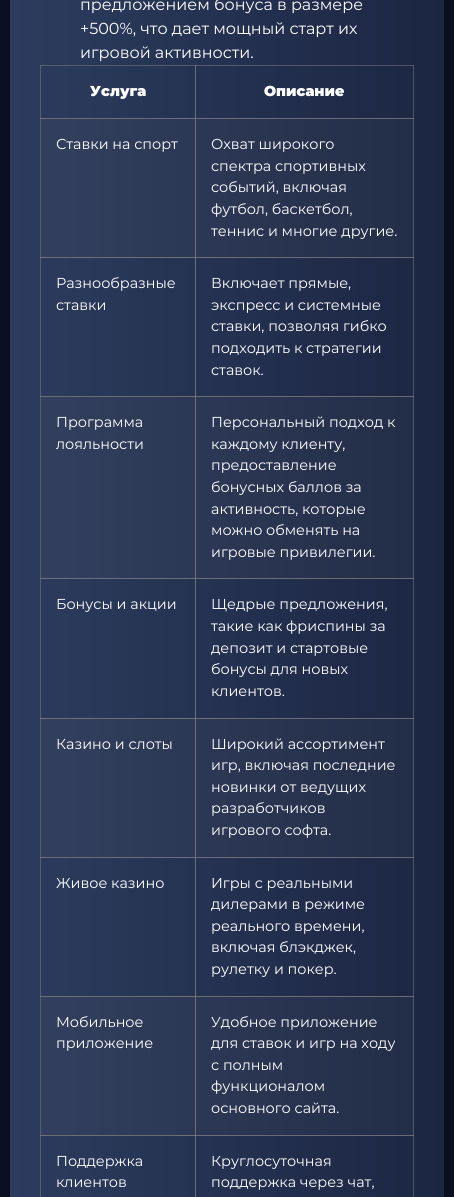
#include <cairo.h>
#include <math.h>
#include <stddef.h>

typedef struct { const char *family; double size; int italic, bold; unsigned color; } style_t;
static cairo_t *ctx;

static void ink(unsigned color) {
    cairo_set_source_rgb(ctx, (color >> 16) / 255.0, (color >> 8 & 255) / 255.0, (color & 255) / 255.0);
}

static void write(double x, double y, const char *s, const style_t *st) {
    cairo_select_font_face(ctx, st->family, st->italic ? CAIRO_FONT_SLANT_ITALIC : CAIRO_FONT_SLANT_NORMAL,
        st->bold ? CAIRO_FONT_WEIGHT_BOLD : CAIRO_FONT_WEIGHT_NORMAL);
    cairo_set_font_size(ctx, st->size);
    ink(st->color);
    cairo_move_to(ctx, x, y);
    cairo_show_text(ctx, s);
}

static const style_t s1 = {"Montserrat", 16, 0, 0, 0xffffff};
static const style_t s2 = {"Montserrat Black", 14.4, 0, 0, 0xffffff};
static const style_t s3 = {"Montserrat", 14.4, 0, 0, 0xffffff};

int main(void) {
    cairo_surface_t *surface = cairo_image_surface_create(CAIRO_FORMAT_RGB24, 454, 1197);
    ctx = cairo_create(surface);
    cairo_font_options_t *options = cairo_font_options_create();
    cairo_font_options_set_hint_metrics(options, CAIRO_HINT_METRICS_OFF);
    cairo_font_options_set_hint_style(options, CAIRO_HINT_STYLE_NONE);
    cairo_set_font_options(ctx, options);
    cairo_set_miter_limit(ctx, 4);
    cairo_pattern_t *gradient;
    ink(0x090f1e);
    cairo_paint(ctx);
    gradient = cairo_pattern_create_linear(10, 458, 444, 458);
    cairo_pattern_add_color_stop_rgba(gradient, 0, 0.176, 0.235, 0.369, 1);
    cairo_pattern_add_color_stop_rgba(gradient, 1, 0.106, 0.149, 0.259, 1);
    cairo_set_source(ctx, gradient);
    cairo_pattern_destroy(gradient);
    cairo_rectangle(ctx, 10, 0, 434, 1197);
    cairo_fill(ctx);
    gradient = cairo_pattern_create_linear(10, 458, 444, 458);
    cairo_pattern_add_color_stop_rgba(gradient, 0, 0.341, 0.369, 0.435, 1);
    cairo_pattern_add_color_stop_rgba(gradient, 1, 0.306, 0.325, 0.38, 1);
    cairo_set_source(ctx, gradient);
    cairo_pattern_destroy(gradient);
    cairo_rectangle(ctx, 40, 65, 1, 54);
    cairo_fill(ctx);
    cairo_rectangle(ctx, 40, 65, 156, 1);
    cairo_fill(ctx);
    gradient = cairo_pattern_create_linear(10, 458, 444, 458);
    cairo_pattern_add_color_stop_rgba(gradient, 0, 0.424, 0.435, 0.471, 1);
    cairo_pattern_add_color_stop_rgba(gradient, 1, 0.404, 0.416, 0.443, 1);
    cairo_set_source(ctx, gradient);
    cairo_pattern_destroy(gradient);
    cairo_rectangle(ctx, 40, 65, 1, 1);
    cairo_fill(ctx);
    cairo_rectangle(ctx, 195, 65, 1, 54);
    cairo_fill(ctx);
    gradient = cairo_pattern_create_linear(10, 458, 444, 458);
    cairo_pattern_add_color_stop_rgba(gradient, 0, 0.341, 0.369, 0.435, 1);
    cairo_pattern_add_color_stop_rgba(gradient, 1, 0.306, 0.325, 0.38, 1);
    cairo_set_source(ctx, gradient);
    cairo_pattern_destroy(gradient);
    cairo_rectangle(ctx, 413, 65, 1, 54);
    cairo_fill(ctx);
    cairo_rectangle(ctx, 195, 65, 219, 1);
    cairo_fill(ctx);
    gradient = cairo_pattern_create_linear(10, 458, 444, 458);
    cairo_pattern_add_color_stop_rgba(gradient, 0, 0.482, 0.486, 0.494, 1);
    cairo_pattern_add_color_stop_rgba(gradient, 1, 0.478, 0.482, 0.49, 1);
    cairo_set_source(ctx, gradient);
    cairo_pattern_destroy(gradient);
    cairo_rectangle(ctx, 195, 65, 1, 1);
    cairo_fill(ctx);
    gradient = cairo_pattern_create_linear(10, 458, 444, 458);
    cairo_pattern_add_color_stop_rgba(gradient, 0, 0.424, 0.435, 0.471, 1);
    cairo_pattern_add_color_stop_rgba(gradient, 1, 0.404, 0.416, 0.443, 1);
    cairo_set_source(ctx, gradient);
    cairo_pattern_destroy(gradient);
    cairo_rectangle(ctx, 413, 65, 1, 1);
    cairo_fill(ctx);
    gradient = cairo_pattern_create_linear(10, 458, 444, 458);
    cairo_pattern_add_color_stop_rgba(gradient, 0, 0.341, 0.369, 0.435, 1);
    cairo_pattern_add_color_stop_rgba(gradient, 1, 0.306, 0.325, 0.38, 1);
    cairo_set_source(ctx, gradient);
    cairo_pattern_destroy(gradient);
    cairo_rectangle(ctx, 40, 118, 1, 140);
    cairo_fill(ctx);
    gradient = cairo_pattern_create_linear(10, 458, 444, 458);
    cairo_pattern_add_color_stop_rgba(gradient, 0, 0.424, 0.435, 0.471, 1);
    cairo_pattern_add_color_stop_rgba(gradient, 1, 0.404, 0.416, 0.443, 1);
    cairo_set_source(ctx, gradient);
    cairo_pattern_destroy(gradient);
    cairo_rectangle(ctx, 40, 118, 156, 1);
    cairo_fill(ctx);
    gradient = cairo_pattern_create_linear(10, 458, 444, 458);
    cairo_pattern_add_color_stop_rgba(gradient, 0, 0.482, 0.486, 0.494, 1);
    cairo_pattern_add_color_stop_rgba(gradient, 1, 0.478, 0.482, 0.49, 1);
    cairo_set_source(ctx, gradient);
    cairo_pattern_destroy(gradient);
    cairo_rectangle(ctx, 40, 118, 1, 1);
    cairo_fill(ctx);
    gradient = cairo_pattern_create_linear(10, 458, 444, 458);
    cairo_pattern_add_color_stop_rgba(gradient, 0, 0.424, 0.435, 0.471, 1);
    cairo_pattern_add_color_stop_rgba(gradient, 1, 0.404, 0.416, 0.443, 1);
    cairo_set_source(ctx, gradient);
    cairo_pattern_destroy(gradient);
    cairo_rectangle(ctx, 195, 118, 219, 1);
    cairo_fill(ctx);
    gradient = cairo_pattern_create_linear(10, 458, 444, 458);
    cairo_pattern_add_color_stop_rgba(gradient, 0, 0.502, 0.502, 0.502, 1);
    cairo_pattern_add_color_stop_rgba(gradient, 1, 0.502, 0.502, 0.502, 1);
    cairo_set_source(ctx, gradient);
    cairo_pattern_destroy(gradient);
    cairo_rectangle(ctx, 195, 118, 1, 1);
    cairo_fill(ctx);
    gradient = cairo_pattern_create_linear(10, 458, 444, 458);
    cairo_pattern_add_color_stop_rgba(gradient, 0, 0.482, 0.486, 0.494, 1);
    cairo_pattern_add_color_stop_rgba(gradient, 1, 0.478, 0.482, 0.49, 1);
    cairo_set_source(ctx, gradient);
    cairo_pattern_destroy(gradient);
    cairo_rectangle(ctx, 413, 118, 1, 1);
    cairo_fill(ctx);
    gradient = cairo_pattern_create_linear(10, 458, 444, 458);
    cairo_pattern_add_color_stop_rgba(gradient, 0, 0.341, 0.369, 0.435, 1);
    cairo_pattern_add_color_stop_rgba(gradient, 1, 0.306, 0.325, 0.38, 1);
    cairo_set_source(ctx, gradient);
    cairo_pattern_destroy(gradient);
    cairo_rectangle(ctx, 40, 257, 1, 140);
    cairo_fill(ctx);
    gradient = cairo_pattern_create_linear(10, 458, 444, 458);
    cairo_pattern_add_color_stop_rgba(gradient, 0, 0.482, 0.486, 0.494, 1);
    cairo_pattern_add_color_stop_rgba(gradient, 1, 0.478, 0.482, 0.49, 1);
    cairo_set_source(ctx, gradient);
    cairo_pattern_destroy(gradient);
    cairo_rectangle(ctx, 40, 257, 1, 1);
    cairo_fill(ctx);
    gradient = cairo_pattern_create_linear(10, 458, 444, 458);
    cairo_pattern_add_color_stop_rgba(gradient, 0, 0.424, 0.435, 0.471, 1);
    cairo_pattern_add_color_stop_rgba(gradient, 1, 0.404, 0.416, 0.443, 1);
    cairo_set_source(ctx, gradient);
    cairo_pattern_destroy(gradient);
    cairo_rectangle(ctx, 195, 257, 1, 140);
    cairo_fill(ctx);
    gradient = cairo_pattern_create_linear(10, 458, 444, 458);
    cairo_pattern_add_color_stop_rgba(gradient, 0, 0.341, 0.369, 0.435, 1);
    cairo_pattern_add_color_stop_rgba(gradient, 1, 0.306, 0.325, 0.38, 1);
    cairo_set_source(ctx, gradient);
    cairo_pattern_destroy(gradient);
    cairo_rectangle(ctx, 413, 257, 1, 140);
    cairo_fill(ctx);
    cairo_rectangle(ctx, 40, 396, 1, 183);
    cairo_fill(ctx);
    gradient = cairo_pattern_create_linear(10, 458, 444, 458);
    cairo_pattern_add_color_stop_rgba(gradient, 0, 0.424, 0.435, 0.471, 1);
    cairo_pattern_add_color_stop_rgba(gradient, 1, 0.404, 0.416, 0.443, 1);
    cairo_set_source(ctx, gradient);
    cairo_pattern_destroy(gradient);
    cairo_rectangle(ctx, 40, 396, 156, 1);
    cairo_fill(ctx);
    gradient = cairo_pattern_create_linear(10, 458, 444, 458);
    cairo_pattern_add_color_stop_rgba(gradient, 0, 0.482, 0.486, 0.494, 1);
    cairo_pattern_add_color_stop_rgba(gradient, 1, 0.478, 0.482, 0.49, 1);
    cairo_set_source(ctx, gradient);
    cairo_pattern_destroy(gradient);
    cairo_rectangle(ctx, 40, 396, 1, 1);
    cairo_fill(ctx);
    gradient = cairo_pattern_create_linear(10, 458, 444, 458);
    cairo_pattern_add_color_stop_rgba(gradient, 0, 0.424, 0.435, 0.471, 1);
    cairo_pattern_add_color_stop_rgba(gradient, 1, 0.404, 0.416, 0.443, 1);
    cairo_set_source(ctx, gradient);
    cairo_pattern_destroy(gradient);
    cairo_rectangle(ctx, 195, 396, 219, 1);
    cairo_fill(ctx);
    gradient = cairo_pattern_create_linear(10, 458, 444, 458);
    cairo_pattern_add_color_stop_rgba(gradient, 0, 0.502, 0.502, 0.502, 1);
    cairo_pattern_add_color_stop_rgba(gradient, 1, 0.502, 0.502, 0.502, 1);
    cairo_set_source(ctx, gradient);
    cairo_pattern_destroy(gradient);
    cairo_rectangle(ctx, 195, 396, 1, 1);
    cairo_fill(ctx);
    gradient = cairo_pattern_create_linear(10, 458, 444, 458);
    cairo_pattern_add_color_stop_rgba(gradient, 0, 0.482, 0.486, 0.494, 1);
    cairo_pattern_add_color_stop_rgba(gradient, 1, 0.478, 0.482, 0.49, 1);
    cairo_set_source(ctx, gradient);
    cairo_pattern_destroy(gradient);
    cairo_rectangle(ctx, 413, 396, 1, 1);
    cairo_fill(ctx);
    gradient = cairo_pattern_create_linear(10, 458, 444, 458);
    cairo_pattern_add_color_stop_rgba(gradient, 0, 0.341, 0.369, 0.435, 1);
    cairo_pattern_add_color_stop_rgba(gradient, 1, 0.306, 0.325, 0.38, 1);
    cairo_set_source(ctx, gradient);
    cairo_pattern_destroy(gradient);
    cairo_rectangle(ctx, 40, 578, 1, 141);
    cairo_fill(ctx);
    gradient = cairo_pattern_create_linear(10, 458, 444, 458);
    cairo_pattern_add_color_stop_rgba(gradient, 0, 0.482, 0.486, 0.494, 1);
    cairo_pattern_add_color_stop_rgba(gradient, 1, 0.478, 0.482, 0.49, 1);
    cairo_set_source(ctx, gradient);
    cairo_pattern_destroy(gradient);
    cairo_rectangle(ctx, 40, 578, 1, 1);
    cairo_fill(ctx);
    gradient = cairo_pattern_create_linear(10, 458, 444, 458);
    cairo_pattern_add_color_stop_rgba(gradient, 0, 0.424, 0.435, 0.471, 1);
    cairo_pattern_add_color_stop_rgba(gradient, 1, 0.404, 0.416, 0.443, 1);
    cairo_set_source(ctx, gradient);
    cairo_pattern_destroy(gradient);
    cairo_rectangle(ctx, 195, 578, 1, 141);
    cairo_fill(ctx);
    gradient = cairo_pattern_create_linear(10, 458, 444, 458);
    cairo_pattern_add_color_stop_rgba(gradient, 0, 0.341, 0.369, 0.435, 1);
    cairo_pattern_add_color_stop_rgba(gradient, 1, 0.306, 0.325, 0.38, 1);
    cairo_set_source(ctx, gradient);
    cairo_pattern_destroy(gradient);
    cairo_rectangle(ctx, 413, 578, 1, 141);
    cairo_fill(ctx);
    cairo_rectangle(ctx, 40, 718, 1, 140);
    cairo_fill(ctx);
    gradient = cairo_pattern_create_linear(10, 458, 444, 458);
    cairo_pattern_add_color_stop_rgba(gradient, 0, 0.482, 0.486, 0.494, 1);
    cairo_pattern_add_color_stop_rgba(gradient, 1, 0.478, 0.482, 0.49, 1);
    cairo_set_source(ctx, gradient);
    cairo_pattern_destroy(gradient);
    cairo_rectangle(ctx, 40, 718, 1, 1);
    cairo_fill(ctx);
    gradient = cairo_pattern_create_linear(10, 458, 444, 458);
    cairo_pattern_add_color_stop_rgba(gradient, 0, 0.341, 0.369, 0.435, 1);
    cairo_pattern_add_color_stop_rgba(gradient, 1, 0.306, 0.325, 0.38, 1);
    cairo_set_source(ctx, gradient);
    cairo_pattern_destroy(gradient);
    cairo_rectangle(ctx, 40, 857, 1, 140);
    cairo_fill(ctx);
    gradient = cairo_pattern_create_linear(10, 458, 444, 458);
    cairo_pattern_add_color_stop_rgba(gradient, 0, 0.424, 0.435, 0.471, 1);
    cairo_pattern_add_color_stop_rgba(gradient, 1, 0.404, 0.416, 0.443, 1);
    cairo_set_source(ctx, gradient);
    cairo_pattern_destroy(gradient);
    cairo_rectangle(ctx, 40, 857, 156, 1);
    cairo_fill(ctx);
    gradient = cairo_pattern_create_linear(10, 458, 444, 458);
    cairo_pattern_add_color_stop_rgba(gradient, 0, 0.482, 0.486, 0.494, 1);
    cairo_pattern_add_color_stop_rgba(gradient, 1, 0.478, 0.482, 0.49, 1);
    cairo_set_source(ctx, gradient);
    cairo_pattern_destroy(gradient);
    cairo_rectangle(ctx, 40, 857, 1, 1);
    cairo_fill(ctx);
    gradient = cairo_pattern_create_linear(10, 458, 444, 458);
    cairo_pattern_add_color_stop_rgba(gradient, 0, 0.424, 0.435, 0.471, 1);
    cairo_pattern_add_color_stop_rgba(gradient, 1, 0.404, 0.416, 0.443, 1);
    cairo_set_source(ctx, gradient);
    cairo_pattern_destroy(gradient);
    cairo_rectangle(ctx, 195, 857, 1, 140);
    cairo_fill(ctx);
    gradient = cairo_pattern_create_linear(10, 458, 444, 458);
    cairo_pattern_add_color_stop_rgba(gradient, 0, 0.341, 0.369, 0.435, 1);
    cairo_pattern_add_color_stop_rgba(gradient, 1, 0.306, 0.325, 0.38, 1);
    cairo_set_source(ctx, gradient);
    cairo_pattern_destroy(gradient);
    cairo_rectangle(ctx, 413, 857, 1, 140);
    cairo_fill(ctx);
    gradient = cairo_pattern_create_linear(10, 458, 444, 458);
    cairo_pattern_add_color_stop_rgba(gradient, 0, 0.424, 0.435, 0.471, 1);
    cairo_pattern_add_color_stop_rgba(gradient, 1, 0.404, 0.416, 0.443, 1);
    cairo_set_source(ctx, gradient);
    cairo_pattern_destroy(gradient);
    cairo_rectangle(ctx, 195, 857, 219, 1);
    cairo_fill(ctx);
    gradient = cairo_pattern_create_linear(10, 458, 444, 458);
    cairo_pattern_add_color_stop_rgba(gradient, 0, 0.502, 0.502, 0.502, 1);
    cairo_pattern_add_color_stop_rgba(gradient, 1, 0.502, 0.502, 0.502, 1);
    cairo_set_source(ctx, gradient);
    cairo_pattern_destroy(gradient);
    cairo_rectangle(ctx, 195, 857, 1, 1);
    cairo_fill(ctx);
    gradient = cairo_pattern_create_linear(10, 458, 444, 458);
    cairo_pattern_add_color_stop_rgba(gradient, 0, 0.482, 0.486, 0.494, 1);
    cairo_pattern_add_color_stop_rgba(gradient, 1, 0.478, 0.482, 0.49, 1);
    cairo_set_source(ctx, gradient);
    cairo_pattern_destroy(gradient);
    cairo_rectangle(ctx, 413, 857, 1, 1);
    cairo_fill(ctx);
    gradient = cairo_pattern_create_linear(10, 458, 444, 458);
    cairo_pattern_add_color_stop_rgba(gradient, 0, 0.341, 0.369, 0.435, 1);
    cairo_pattern_add_color_stop_rgba(gradient, 1, 0.306, 0.325, 0.38, 1);
    cairo_set_source(ctx, gradient);
    cairo_pattern_destroy(gradient);
    cairo_rectangle(ctx, 40, 996, 1, 140);
    cairo_fill(ctx);
    gradient = cairo_pattern_create_linear(10, 458, 444, 458);
    cairo_pattern_add_color_stop_rgba(gradient, 0, 0.482, 0.486, 0.494, 1);
    cairo_pattern_add_color_stop_rgba(gradient, 1, 0.478, 0.482, 0.49, 1);
    cairo_set_source(ctx, gradient);
    cairo_pattern_destroy(gradient);
    cairo_rectangle(ctx, 40, 996, 1, 1);
    cairo_fill(ctx);
    gradient = cairo_pattern_create_linear(10, 458, 444, 458);
    cairo_pattern_add_color_stop_rgba(gradient, 0, 0.341, 0.369, 0.435, 1);
    cairo_pattern_add_color_stop_rgba(gradient, 1, 0.306, 0.325, 0.38, 1);
    cairo_set_source(ctx, gradient);
    cairo_pattern_destroy(gradient);
    cairo_rectangle(ctx, 40, 1135, 1, 62);
    cairo_fill(ctx);
    gradient = cairo_pattern_create_linear(10, 458, 444, 458);
    cairo_pattern_add_color_stop_rgba(gradient, 0, 0.424, 0.435, 0.471, 1);
    cairo_pattern_add_color_stop_rgba(gradient, 1, 0.404, 0.416, 0.443, 1);
    cairo_set_source(ctx, gradient);
    cairo_pattern_destroy(gradient);
    cairo_rectangle(ctx, 40, 1135, 156, 1);
    cairo_fill(ctx);
    gradient = cairo_pattern_create_linear(10, 458, 444, 458);
    cairo_pattern_add_color_stop_rgba(gradient, 0, 0.482, 0.486, 0.494, 1);
    cairo_pattern_add_color_stop_rgba(gradient, 1, 0.478, 0.482, 0.49, 1);
    cairo_set_source(ctx, gradient);
    cairo_pattern_destroy(gradient);
    cairo_rectangle(ctx, 40, 1135, 1, 1);
    cairo_fill(ctx);
    gradient = cairo_pattern_create_linear(10, 458, 444, 458);
    cairo_pattern_add_color_stop_rgba(gradient, 0, 0.424, 0.435, 0.471, 1);
    cairo_pattern_add_color_stop_rgba(gradient, 1, 0.404, 0.416, 0.443, 1);
    cairo_set_source(ctx, gradient);
    cairo_pattern_destroy(gradient);
    cairo_rectangle(ctx, 195, 1135, 1, 62);
    cairo_fill(ctx);
    gradient = cairo_pattern_create_linear(10, 458, 444, 458);
    cairo_pattern_add_color_stop_rgba(gradient, 0, 0.341, 0.369, 0.435, 1);
    cairo_pattern_add_color_stop_rgba(gradient, 1, 0.306, 0.325, 0.38, 1);
    cairo_set_source(ctx, gradient);
    cairo_pattern_destroy(gradient);
    cairo_rectangle(ctx, 413, 1135, 1, 62);
    cairo_fill(ctx);
    gradient = cairo_pattern_create_linear(10, 458, 444, 458);
    cairo_pattern_add_color_stop_rgba(gradient, 0, 0.424, 0.435, 0.471, 1);
    cairo_pattern_add_color_stop_rgba(gradient, 1, 0.404, 0.416, 0.443, 1);
    cairo_set_source(ctx, gradient);
    cairo_pattern_destroy(gradient);
    cairo_rectangle(ctx, 195, 1135, 219, 1);
    cairo_fill(ctx);
    gradient = cairo_pattern_create_linear(10, 458, 444, 458);
    cairo_pattern_add_color_stop_rgba(gradient, 0, 0.502, 0.502, 0.502, 1);
    cairo_pattern_add_color_stop_rgba(gradient, 1, 0.502, 0.502, 0.502, 1);
    cairo_set_source(ctx, gradient);
    cairo_pattern_destroy(gradient);
    cairo_rectangle(ctx, 195, 1135, 1, 1);
    cairo_fill(ctx);
    gradient = cairo_pattern_create_linear(10, 458, 444, 458);
    cairo_pattern_add_color_stop_rgba(gradient, 0, 0.482, 0.486, 0.494, 1);
    cairo_pattern_add_color_stop_rgba(gradient, 1, 0.478, 0.482, 0.49, 1);
    cairo_set_source(ctx, gradient);
    cairo_pattern_destroy(gradient);
    cairo_rectangle(ctx, 413, 1135, 1, 1);
    cairo_fill(ctx);
    gradient = cairo_pattern_create_linear(10, 458, 444, 458);
    cairo_pattern_add_color_stop_rgba(gradient, 0, 0.2, 0.255, 0.376, 1);
    cairo_pattern_add_color_stop_rgba(gradient, 1, 0.133, 0.173, 0.275, 1);
    cairo_set_source(ctx, gradient);
    cairo_pattern_destroy(gradient);
    cairo_rectangle(ctx, 196, 997, 217, 138);
    cairo_fill(ctx);
    gradient = cairo_pattern_create_linear(10, 458, 444, 458);
    cairo_pattern_add_color_stop_rgba(gradient, 0, 0.353, 0.38, 0.439, 1);
    cairo_pattern_add_color_stop_rgba(gradient, 1, 0.318, 0.337, 0.388, 1);
    cairo_set_source(ctx, gradient);
    cairo_pattern_destroy(gradient);
    cairo_rectangle(ctx, 413, 996, 1, 139);
    cairo_fill(ctx);
    gradient = cairo_pattern_create_linear(10, 458, 444, 458);
    cairo_pattern_add_color_stop_rgba(gradient, 0, 0.427, 0.443, 0.471, 1);
    cairo_pattern_add_color_stop_rgba(gradient, 1, 0.412, 0.42, 0.447, 1);
    cairo_set_source(ctx, gradient);
    cairo_pattern_destroy(gradient);
    cairo_rectangle(ctx, 196, 996, 218, 1);
    cairo_fill(ctx);
    gradient = cairo_pattern_create_linear(10, 458, 444, 458);
    cairo_pattern_add_color_stop_rgba(gradient, 0, 0.486, 0.49, 0.494, 1);
    cairo_pattern_add_color_stop_rgba(gradient, 1, 0.482, 0.482, 0.49, 1);
    cairo_set_source(ctx, gradient);
    cairo_pattern_destroy(gradient);
    cairo_rectangle(ctx, 413, 996, 1, 1);
    cairo_fill(ctx);
    gradient = cairo_pattern_create_linear(10, 458, 444, 458);
    cairo_pattern_add_color_stop_rgba(gradient, 0, 0.2, 0.255, 0.376, 1);
    cairo_pattern_add_color_stop_rgba(gradient, 1, 0.133, 0.173, 0.275, 1);
    cairo_set_source(ctx, gradient);
    cairo_pattern_destroy(gradient);
    cairo_rectangle(ctx, 41, 997, 154, 138);
    cairo_fill(ctx);
    gradient = cairo_pattern_create_linear(10, 458, 444, 458);
    cairo_pattern_add_color_stop_rgba(gradient, 0, 0.427, 0.443, 0.471, 1);
    cairo_pattern_add_color_stop_rgba(gradient, 1, 0.412, 0.42, 0.447, 1);
    cairo_set_source(ctx, gradient);
    cairo_pattern_destroy(gradient);
    cairo_rectangle(ctx, 41, 996, 155, 1);
    cairo_fill(ctx);
    cairo_rectangle(ctx, 195, 996, 1, 139);
    cairo_fill(ctx);
    gradient = cairo_pattern_create_linear(10, 458, 444, 458);
    cairo_pattern_add_color_stop_rgba(gradient, 0, 0.502, 0.502, 0.502, 1);
    cairo_pattern_add_color_stop_rgba(gradient, 1, 0.502, 0.502, 0.502, 1);
    cairo_set_source(ctx, gradient);
    cairo_pattern_destroy(gradient);
    cairo_rectangle(ctx, 195, 996, 1, 1);
    cairo_fill(ctx);
    gradient = cairo_pattern_create_linear(10, 458, 444, 458);
    cairo_pattern_add_color_stop_rgba(gradient, 0, 0.2, 0.255, 0.376, 1);
    cairo_pattern_add_color_stop_rgba(gradient, 1, 0.133, 0.173, 0.275, 1);
    cairo_set_source(ctx, gradient);
    cairo_pattern_destroy(gradient);
    cairo_rectangle(ctx, 196, 719, 217, 138);
    cairo_fill(ctx);
    gradient = cairo_pattern_create_linear(10, 458, 444, 458);
    cairo_pattern_add_color_stop_rgba(gradient, 0, 0.353, 0.38, 0.439, 1);
    cairo_pattern_add_color_stop_rgba(gradient, 1, 0.318, 0.337, 0.388, 1);
    cairo_set_source(ctx, gradient);
    cairo_pattern_destroy(gradient);
    cairo_rectangle(ctx, 413, 718, 1, 139);
    cairo_fill(ctx);
    gradient = cairo_pattern_create_linear(10, 458, 444, 458);
    cairo_pattern_add_color_stop_rgba(gradient, 0, 0.427, 0.443, 0.471, 1);
    cairo_pattern_add_color_stop_rgba(gradient, 1, 0.412, 0.42, 0.447, 1);
    cairo_set_source(ctx, gradient);
    cairo_pattern_destroy(gradient);
    cairo_rectangle(ctx, 196, 718, 218, 1);
    cairo_fill(ctx);
    gradient = cairo_pattern_create_linear(10, 458, 444, 458);
    cairo_pattern_add_color_stop_rgba(gradient, 0, 0.486, 0.49, 0.494, 1);
    cairo_pattern_add_color_stop_rgba(gradient, 1, 0.482, 0.482, 0.49, 1);
    cairo_set_source(ctx, gradient);
    cairo_pattern_destroy(gradient);
    cairo_rectangle(ctx, 413, 718, 1, 1);
    cairo_fill(ctx);
    gradient = cairo_pattern_create_linear(10, 458, 444, 458);
    cairo_pattern_add_color_stop_rgba(gradient, 0, 0.2, 0.255, 0.376, 1);
    cairo_pattern_add_color_stop_rgba(gradient, 1, 0.133, 0.173, 0.275, 1);
    cairo_set_source(ctx, gradient);
    cairo_pattern_destroy(gradient);
    cairo_rectangle(ctx, 41, 719, 154, 138);
    cairo_fill(ctx);
    gradient = cairo_pattern_create_linear(10, 458, 444, 458);
    cairo_pattern_add_color_stop_rgba(gradient, 0, 0.427, 0.443, 0.471, 1);
    cairo_pattern_add_color_stop_rgba(gradient, 1, 0.412, 0.42, 0.447, 1);
    cairo_set_source(ctx, gradient);
    cairo_pattern_destroy(gradient);
    cairo_rectangle(ctx, 41, 718, 155, 1);
    cairo_fill(ctx);
    cairo_rectangle(ctx, 195, 718, 1, 139);
    cairo_fill(ctx);
    gradient = cairo_pattern_create_linear(10, 458, 444, 458);
    cairo_pattern_add_color_stop_rgba(gradient, 0, 0.502, 0.502, 0.502, 1);
    cairo_pattern_add_color_stop_rgba(gradient, 1, 0.502, 0.502, 0.502, 1);
    cairo_set_source(ctx, gradient);
    cairo_pattern_destroy(gradient);
    cairo_rectangle(ctx, 195, 718, 1, 1);
    cairo_fill(ctx);
    gradient = cairo_pattern_create_linear(10, 458, 444, 458);
    cairo_pattern_add_color_stop_rgba(gradient, 0, 0.2, 0.255, 0.376, 1);
    cairo_pattern_add_color_stop_rgba(gradient, 1, 0.133, 0.173, 0.275, 1);
    cairo_set_source(ctx, gradient);
    cairo_pattern_destroy(gradient);
    cairo_rectangle(ctx, 196, 397, 217, 181);
    cairo_fill(ctx);
    gradient = cairo_pattern_create_linear(10, 458, 444, 458);
    cairo_pattern_add_color_stop_rgba(gradient, 0, 0.353, 0.38, 0.439, 1);
    cairo_pattern_add_color_stop_rgba(gradient, 1, 0.318, 0.337, 0.388, 1);
    cairo_set_source(ctx, gradient);
    cairo_pattern_destroy(gradient);
    cairo_rectangle(ctx, 413, 397, 1, 182);
    cairo_fill(ctx);
    gradient = cairo_pattern_create_linear(10, 458, 444, 458);
    cairo_pattern_add_color_stop_rgba(gradient, 0, 0.427, 0.443, 0.471, 1);
    cairo_pattern_add_color_stop_rgba(gradient, 1, 0.412, 0.42, 0.447, 1);
    cairo_set_source(ctx, gradient);
    cairo_pattern_destroy(gradient);
    cairo_rectangle(ctx, 196, 578, 218, 1);
    cairo_fill(ctx);
    gradient = cairo_pattern_create_linear(10, 458, 444, 458);
    cairo_pattern_add_color_stop_rgba(gradient, 0, 0.486, 0.49, 0.494, 1);
    cairo_pattern_add_color_stop_rgba(gradient, 1, 0.482, 0.482, 0.49, 1);
    cairo_set_source(ctx, gradient);
    cairo_pattern_destroy(gradient);
    cairo_rectangle(ctx, 413, 578, 1, 1);
    cairo_fill(ctx);
    gradient = cairo_pattern_create_linear(10, 458, 444, 458);
    cairo_pattern_add_color_stop_rgba(gradient, 0, 0.2, 0.255, 0.376, 1);
    cairo_pattern_add_color_stop_rgba(gradient, 1, 0.133, 0.173, 0.275, 1);
    cairo_set_source(ctx, gradient);
    cairo_pattern_destroy(gradient);
    cairo_rectangle(ctx, 41, 397, 154, 181);
    cairo_fill(ctx);
    gradient = cairo_pattern_create_linear(10, 458, 444, 458);
    cairo_pattern_add_color_stop_rgba(gradient, 0, 0.427, 0.443, 0.471, 1);
    cairo_pattern_add_color_stop_rgba(gradient, 1, 0.412, 0.42, 0.447, 1);
    cairo_set_source(ctx, gradient);
    cairo_pattern_destroy(gradient);
    cairo_rectangle(ctx, 195, 397, 1, 182);
    cairo_fill(ctx);
    cairo_rectangle(ctx, 41, 578, 155, 1);
    cairo_fill(ctx);
    gradient = cairo_pattern_create_linear(10, 458, 444, 458);
    cairo_pattern_add_color_stop_rgba(gradient, 0, 0.502, 0.502, 0.502, 1);
    cairo_pattern_add_color_stop_rgba(gradient, 1, 0.502, 0.502, 0.502, 1);
    cairo_set_source(ctx, gradient);
    cairo_pattern_destroy(gradient);
    cairo_rectangle(ctx, 195, 578, 1, 1);
    cairo_fill(ctx);
    gradient = cairo_pattern_create_linear(10, 458, 444, 458);
    cairo_pattern_add_color_stop_rgba(gradient, 0, 0.2, 0.255, 0.376, 1);
    cairo_pattern_add_color_stop_rgba(gradient, 1, 0.133, 0.173, 0.275, 1);
    cairo_set_source(ctx, gradient);
    cairo_pattern_destroy(gradient);
    cairo_rectangle(ctx, 196, 119, 217, 138);
    cairo_fill(ctx);
    gradient = cairo_pattern_create_linear(10, 458, 444, 458);
    cairo_pattern_add_color_stop_rgba(gradient, 0, 0.353, 0.38, 0.439, 1);
    cairo_pattern_add_color_stop_rgba(gradient, 1, 0.318, 0.337, 0.388, 1);
    cairo_set_source(ctx, gradient);
    cairo_pattern_destroy(gradient);
    cairo_rectangle(ctx, 413, 119, 1, 139);
    cairo_fill(ctx);
    gradient = cairo_pattern_create_linear(10, 458, 444, 458);
    cairo_pattern_add_color_stop_rgba(gradient, 0, 0.427, 0.443, 0.471, 1);
    cairo_pattern_add_color_stop_rgba(gradient, 1, 0.412, 0.42, 0.447, 1);
    cairo_set_source(ctx, gradient);
    cairo_pattern_destroy(gradient);
    cairo_rectangle(ctx, 196, 257, 218, 1);
    cairo_fill(ctx);
    gradient = cairo_pattern_create_linear(10, 458, 444, 458);
    cairo_pattern_add_color_stop_rgba(gradient, 0, 0.486, 0.49, 0.494, 1);
    cairo_pattern_add_color_stop_rgba(gradient, 1, 0.482, 0.482, 0.49, 1);
    cairo_set_source(ctx, gradient);
    cairo_pattern_destroy(gradient);
    cairo_rectangle(ctx, 413, 257, 1, 1);
    cairo_fill(ctx);
    gradient = cairo_pattern_create_linear(10, 458, 444, 458);
    cairo_pattern_add_color_stop_rgba(gradient, 0, 0.2, 0.255, 0.376, 1);
    cairo_pattern_add_color_stop_rgba(gradient, 1, 0.133, 0.173, 0.275, 1);
    cairo_set_source(ctx, gradient);
    cairo_pattern_destroy(gradient);
    cairo_rectangle(ctx, 41, 119, 154, 138);
    cairo_fill(ctx);
    gradient = cairo_pattern_create_linear(10, 458, 444, 458);
    cairo_pattern_add_color_stop_rgba(gradient, 0, 0.427, 0.443, 0.471, 1);
    cairo_pattern_add_color_stop_rgba(gradient, 1, 0.412, 0.42, 0.447, 1);
    cairo_set_source(ctx, gradient);
    cairo_pattern_destroy(gradient);
    cairo_rectangle(ctx, 195, 119, 1, 139);
    cairo_fill(ctx);
    cairo_rectangle(ctx, 41, 257, 155, 1);
    cairo_fill(ctx);
    gradient = cairo_pattern_create_linear(10, 458, 444, 458);
    cairo_pattern_add_color_stop_rgba(gradient, 0, 0.502, 0.502, 0.502, 1);
    cairo_pattern_add_color_stop_rgba(gradient, 1, 0.502, 0.502, 0.502, 1);
    cairo_set_source(ctx, gradient);
    cairo_pattern_destroy(gradient);
    cairo_rectangle(ctx, 195, 257, 1, 1);
    cairo_fill(ctx);
    write(80, 10, "предложением бонуса в размере", &s1);
    write(80, 34, "+500%, что дает мощный старт их", &s1);
    write(80, 58, "игровой активности.", &s1);
    write(90, 96, "Услуга", &s2);
    write(264, 96, "Описание", &s2);
    write(56, 149, "Ставки на спорт", &s3);
    write(211, 149, "Охват широкого", &s3);
    write(211, 171, "спектра спортивных", &s3);
    write(211, 192, "событий, включая", &s3);
    write(211, 214, "футбол, баскетбол,", &s3);
    write(211, 236, "теннис и многие другие.", &s3);
    write(56, 288, "Разнообразные", &s3);
    write(56, 310, "ставки", &s3);
    write(211, 288, "Включает прямые,", &s3);
    write(211, 310, "экспресс и системные", &s3);
    write(211, 331, "ставки, позволяя гибко", &s3);
    write(211, 353, "подходить к стратегии", &s3);
    write(211, 375, "ставок.", &s3);
    write(56, 427, "Программа", &s3);
    write(56, 449, "лояльности", &s3);
    write(211, 427, "Персональный подход к", &s3);
    write(211, 449, "каждому клиенту,", &s3);
    write(211, 470, "предоставление", &s3);
    write(211, 492, "бонусных баллов за", &s3);
    write(211, 514, "активность, которые", &s3);
    write(211, 535, "можно обменять на", &s3);
    write(211, 557, "игровые привилегии.", &s3);
    write(56, 609, "Бонусы и акции", &s3);
    write(211, 609, "Щедрые предложения,", &s3);
    write(211, 631, "такие как фриспины за", &s3);
    write(211, 653, "депозит и стартовые", &s3);
    write(211, 674, "бонусы для новых", &s3);
    write(211, 696, "клиентов.", &s3);
    write(56, 749, "Казино и слоты", &s3);
    write(211, 749, "Широкий ассортимент", &s3);
    write(211, 770, "игр, включая последние", &s3);
    write(211, 792, "новинки от ведущих", &s3);
    write(211, 813, "разработчиков", &s3);
    write(211, 835, "игрового софта.", &s3);
    write(56, 888, "Живое казино", &s3);
    write(211, 888, "Игры с реальными", &s3);
    write(211, 909, "дилерами в режиме", &s3);
    write(211, 931, "реального времени,", &s3);
    write(211, 952, "включая блэкджек,", &s3);
    write(211, 974, "рулетку и покер.", &s3);
    write(56, 1027, "Мобильное", &s3);
    write(56, 1048, "приложение", &s3);
    write(211, 1027, "Удобное приложение", &s3);
    write(211, 1048, "для ставок и игр на ходу", &s3);
    write(211, 1070, "с полным", &s3);
    write(211, 1091, "функционалом", &s3);
    write(211, 1113, "основного сайта.", &s3);
    write(56, 1166, "Поддержка", &s3);
    write(56, 1187, "клиентов", &s3);
    write(211, 1166, "Круглосуточная", &s3);
    write(211, 1187, "поддержка через чат,", &s3);
    cairo_surface_write_to_png(surface, "screenshot.png");
    cairo_font_options_destroy(options);
    cairo_destroy(ctx);
    cairo_surface_destroy(surface);
    return 0;
}
